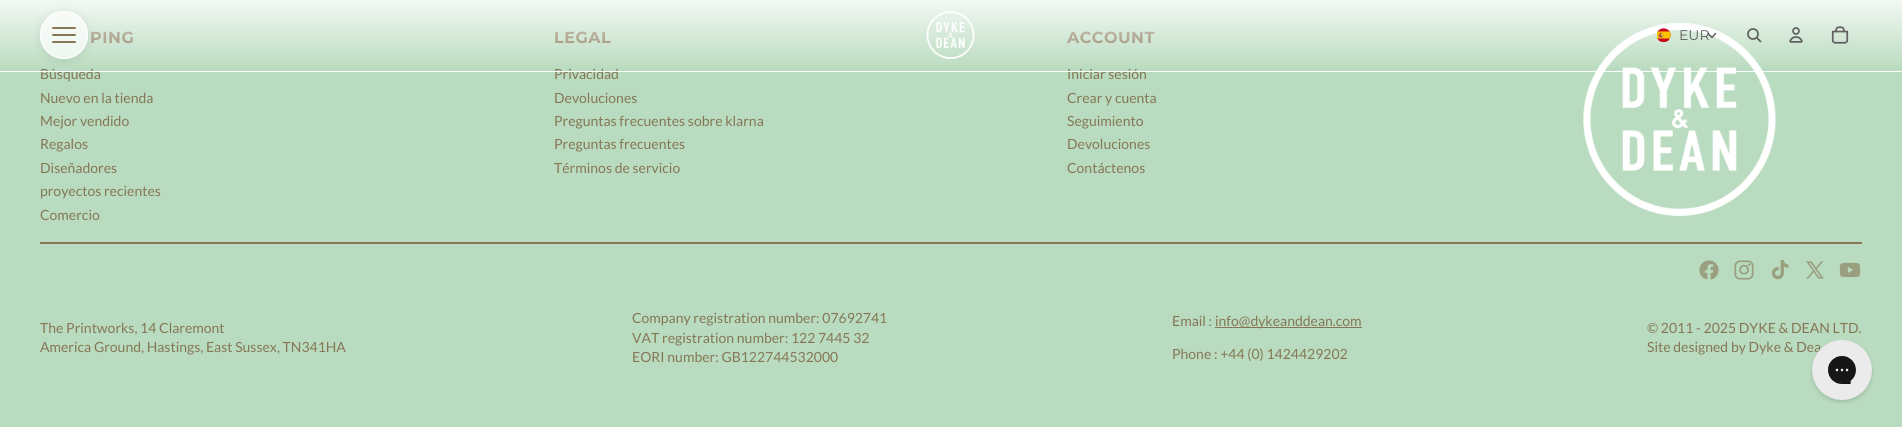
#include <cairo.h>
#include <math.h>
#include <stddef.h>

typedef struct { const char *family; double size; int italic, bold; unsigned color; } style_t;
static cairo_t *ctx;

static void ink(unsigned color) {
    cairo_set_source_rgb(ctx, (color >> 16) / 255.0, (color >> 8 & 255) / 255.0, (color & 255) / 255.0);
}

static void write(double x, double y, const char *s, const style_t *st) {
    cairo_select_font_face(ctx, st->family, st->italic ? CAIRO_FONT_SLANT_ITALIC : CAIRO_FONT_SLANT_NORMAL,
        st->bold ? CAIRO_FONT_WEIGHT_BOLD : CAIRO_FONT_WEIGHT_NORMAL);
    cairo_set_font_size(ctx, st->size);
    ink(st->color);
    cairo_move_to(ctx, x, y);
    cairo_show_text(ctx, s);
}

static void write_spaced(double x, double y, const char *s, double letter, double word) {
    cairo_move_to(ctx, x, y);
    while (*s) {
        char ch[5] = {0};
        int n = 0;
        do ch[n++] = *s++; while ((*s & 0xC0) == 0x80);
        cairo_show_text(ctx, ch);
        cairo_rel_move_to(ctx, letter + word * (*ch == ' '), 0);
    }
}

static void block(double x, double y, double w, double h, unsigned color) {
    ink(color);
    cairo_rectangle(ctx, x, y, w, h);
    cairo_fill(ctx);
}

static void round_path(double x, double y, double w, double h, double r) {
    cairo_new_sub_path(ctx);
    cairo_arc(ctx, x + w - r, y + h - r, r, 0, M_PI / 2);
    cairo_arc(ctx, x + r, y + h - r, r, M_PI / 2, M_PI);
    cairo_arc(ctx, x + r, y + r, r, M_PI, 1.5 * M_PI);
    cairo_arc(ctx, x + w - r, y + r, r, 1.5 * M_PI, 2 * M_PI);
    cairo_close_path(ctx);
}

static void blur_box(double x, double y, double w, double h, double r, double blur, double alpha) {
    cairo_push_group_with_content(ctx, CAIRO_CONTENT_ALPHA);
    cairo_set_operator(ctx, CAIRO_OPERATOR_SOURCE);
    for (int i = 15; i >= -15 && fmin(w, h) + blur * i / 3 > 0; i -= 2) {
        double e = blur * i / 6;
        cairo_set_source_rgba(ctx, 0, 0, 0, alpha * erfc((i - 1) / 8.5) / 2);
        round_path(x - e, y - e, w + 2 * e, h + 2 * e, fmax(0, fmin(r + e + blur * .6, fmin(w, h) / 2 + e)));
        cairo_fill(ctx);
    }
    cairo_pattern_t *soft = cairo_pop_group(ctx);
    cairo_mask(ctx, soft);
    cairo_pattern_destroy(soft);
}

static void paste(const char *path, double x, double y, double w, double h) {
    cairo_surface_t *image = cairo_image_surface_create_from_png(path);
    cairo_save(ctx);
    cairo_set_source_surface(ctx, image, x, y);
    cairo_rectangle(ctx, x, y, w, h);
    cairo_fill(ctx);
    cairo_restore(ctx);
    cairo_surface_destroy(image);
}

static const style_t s1 = {"Lato", 14, 0, 0, 0x857756};
static const style_t s2 = {"Montserrat Thin", 14, 0, 0, 0x5e5e5e};

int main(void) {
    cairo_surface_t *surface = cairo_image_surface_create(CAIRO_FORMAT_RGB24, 1902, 427);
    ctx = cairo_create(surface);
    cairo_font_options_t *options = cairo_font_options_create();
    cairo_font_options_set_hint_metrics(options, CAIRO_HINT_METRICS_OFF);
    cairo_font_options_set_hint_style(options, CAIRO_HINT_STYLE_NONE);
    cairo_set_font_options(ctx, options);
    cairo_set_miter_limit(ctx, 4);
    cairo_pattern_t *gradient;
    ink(0xb9dbbf);
    cairo_paint(ctx);
    cairo_select_font_face(ctx, "Montserrat", CAIRO_FONT_SLANT_NORMAL, CAIRO_FONT_WEIGHT_BOLD);
    cairo_set_font_size(ctx, 16);
    ink(0x857756);
    write_spaced(90, 43, "PING", 0.5, 0);
    write(40, 79, "Búsqueda", &s1);
    write(40, 103, "Nuevo en la tienda", &s1);
    write(40, 126, "Mejor vendido", &s1);
    write(40, 149, "Regalos", &s1);
    write(40, 173, "Diseñadores", &s1);
    write(40, 196, "proyectos recientes", &s1);
    write(40, 220, "Comercio", &s1);
    cairo_select_font_face(ctx, "Montserrat", CAIRO_FONT_SLANT_NORMAL, CAIRO_FONT_WEIGHT_BOLD);
    cairo_set_font_size(ctx, 16);
    write_spaced(554, 43, "LEGAL", 0.5, 0);
    write(554, 79, "Privacidad", &s1);
    write(554, 103, "Devoluciones", &s1);
    write(554, 126, "Preguntas frecuentes sobre klarna", &s1);
    write(554, 149, "Preguntas frecuentes", &s1);
    write(554, 173, "Términos de servicio", &s1);
    cairo_select_font_face(ctx, "Montserrat", CAIRO_FONT_SLANT_NORMAL, CAIRO_FONT_WEIGHT_BOLD);
    cairo_set_font_size(ctx, 16);
    write_spaced(1067, 43, "ACCOUNT", 0.5, 0);
    write(1067, 79, "Iniciar sesión", &s1);
    write(1067, 103, "Crear y cuenta", &s1);
    write(1067, 126, "Seguimiento", &s1);
    write(1067, 149, "Devoluciones", &s1);
    write(1067, 173, "Contáctenos", &s1);
    paste("pic1.png", 1583, 22, 193, 195);
    block(40, 242, 1822, 2, 0x857756);
    paste("pic2.png", 1699, 260, 20, 20);
    paste("pic3.png", 1734, 260, 20, 20);
    paste("pic4.png", 1771, 260, 18, 20);
    paste("pic5.png", 1806, 261, 18, 18);
    paste("pic6.png", 1839, 262, 22, 16);
    gradient = cairo_pattern_create_linear(951, -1, 951, 71);
    cairo_pattern_add_color_stop_rgba(gradient, 0, 1, 1, 1, 0.82);
    cairo_pattern_add_color_stop_rgba(gradient, 1, 1, 1, 1, 0);
    cairo_set_source(ctx, gradient);
    cairo_pattern_destroy(gradient);
    cairo_rectangle(ctx, 0, 0, 1902, 68);
    cairo_fill(ctx);
    gradient = cairo_pattern_create_linear(951, 71, 951, 143);
    cairo_pattern_add_color_stop_rgba(gradient, 0, 1, 1, 1, 0.82);
    cairo_pattern_add_color_stop_rgba(gradient, 1, 1, 1, 1, 0);
    cairo_set_source(ctx, gradient);
    cairo_pattern_destroy(gradient);
    cairo_rectangle(ctx, 0, 71, 1902, 1);
    cairo_fill(ctx);
    cairo_set_source_rgba(ctx, 1, 1, 1, 0.55);
    cairo_rectangle(ctx, 0, 71, 1902, 1);
    cairo_fill(ctx);
    cairo_save(ctx);
    cairo_set_fill_rule(ctx, CAIRO_FILL_RULE_EVEN_ODD);
    cairo_new_path(ctx);
    cairo_move_to(ctx, 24, 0);
    cairo_line_to(ctx, 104, 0);
    cairo_line_to(ctx, 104, 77);
    cairo_line_to(ctx, 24, 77);
    cairo_close_path(ctx);
    cairo_move_to(ctx, 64, 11);
    cairo_curve_to(ctx, 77.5, 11, 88, 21.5, 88, 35);
    cairo_curve_to(ctx, 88, 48.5, 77.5, 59, 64, 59);
    cairo_curve_to(ctx, 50.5, 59, 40, 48.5, 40, 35);
    cairo_curve_to(ctx, 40, 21.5, 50.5, 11, 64, 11);
    cairo_close_path(ctx);
    cairo_clip(ctx);
    ink(0x000000);
    blur_box(40, 13, 48, 48, 24, 5, 0.08);
    cairo_restore(ctx);
    cairo_set_source_rgba(ctx, 1, 1, 1, 0.72);
    cairo_arc(ctx, 64, 35, 24, 0, 2 * M_PI);
    cairo_fill(ctx);
    cairo_arc(ctx, 64, 35, 23.5, 0, 2 * M_PI);
    cairo_set_source_rgba(ctx, 1, 1, 1, 0.85);
    cairo_set_line_width(ctx, 1);
    cairo_stroke(ctx);
    ink(0x857756);
    round_path(52, 41, 24, 2, 1);
    cairo_fill(ctx);
    round_path(52, 27, 24, 2, 1);
    cairo_fill(ctx);
    round_path(52, 34, 24, 2, 1);
    cairo_fill(ctx);
    paste("pic7.png", 926, 11, 49, 48);
    paste("pic8.png", 1657, 28, 14, 14);
    write(1679, 40, "EUR", &s2);
    cairo_new_path(ctx);
    cairo_move_to(ctx, 1715.5, 33.5);
    cairo_line_to(ctx, 1712, 37.5);
    cairo_line_to(ctx, 1708, 33.5);
    cairo_set_line_width(ctx, 1.5);
    cairo_set_line_cap(ctx, CAIRO_LINE_CAP_ROUND);
    cairo_set_line_join(ctx, CAIRO_LINE_JOIN_ROUND);
    cairo_stroke(ctx);
    cairo_arc(ctx, 1753, 34, 5, 0, 2 * M_PI);
    cairo_set_line_width(ctx, 1.7);
    cairo_set_line_cap(ctx, CAIRO_LINE_CAP_BUTT);
    cairo_set_line_join(ctx, CAIRO_LINE_JOIN_MITER);
    cairo_stroke(ctx);
    cairo_new_path(ctx);
    cairo_move_to(ctx, 1757, 38);
    cairo_line_to(ctx, 1760.5, 41.5);
    cairo_set_line_cap(ctx, CAIRO_LINE_CAP_ROUND);
    cairo_set_line_join(ctx, CAIRO_LINE_JOIN_ROUND);
    cairo_stroke(ctx);
    paste("pic9.png", 1789, 27, 14, 16);
    paste("pic10.png", 1831, 26, 18, 18);
    write(40, 333, "The Printworks, 14 Claremont", &s1);
    write(40, 352, "America Ground, Hastings, East Sussex, TN341HA", &s1);
    write(632, 323, "Company registration number: 07692741", &s1);
    write(632, 343, "VAT registration number: 122 7445 32", &s1);
    write(632, 362, "EORI number: GB122744532000", &s1);
    write(1172, 326, "Email :", &s1);
    block(1215, 327, 147, 1, 0x857756);
    write(1215, 326, "info@dykeanddean.com", &s1);
    write(1172, 359, "Phone : +44 (0) 1424429202", &s1);
    write(1647, 333, "© 2011 - 2025 DYKE & DEAN LTD.", &s1);
    write(1647, 352, "Site designed by Dyke & Dea", &s1);
    paste("pic11.png", 1810, 340, 64, 64);
    cairo_surface_write_to_png(surface, "screenshot.png");
    cairo_font_options_destroy(options);
    cairo_destroy(ctx);
    cairo_surface_destroy(surface);
    return 0;
}
